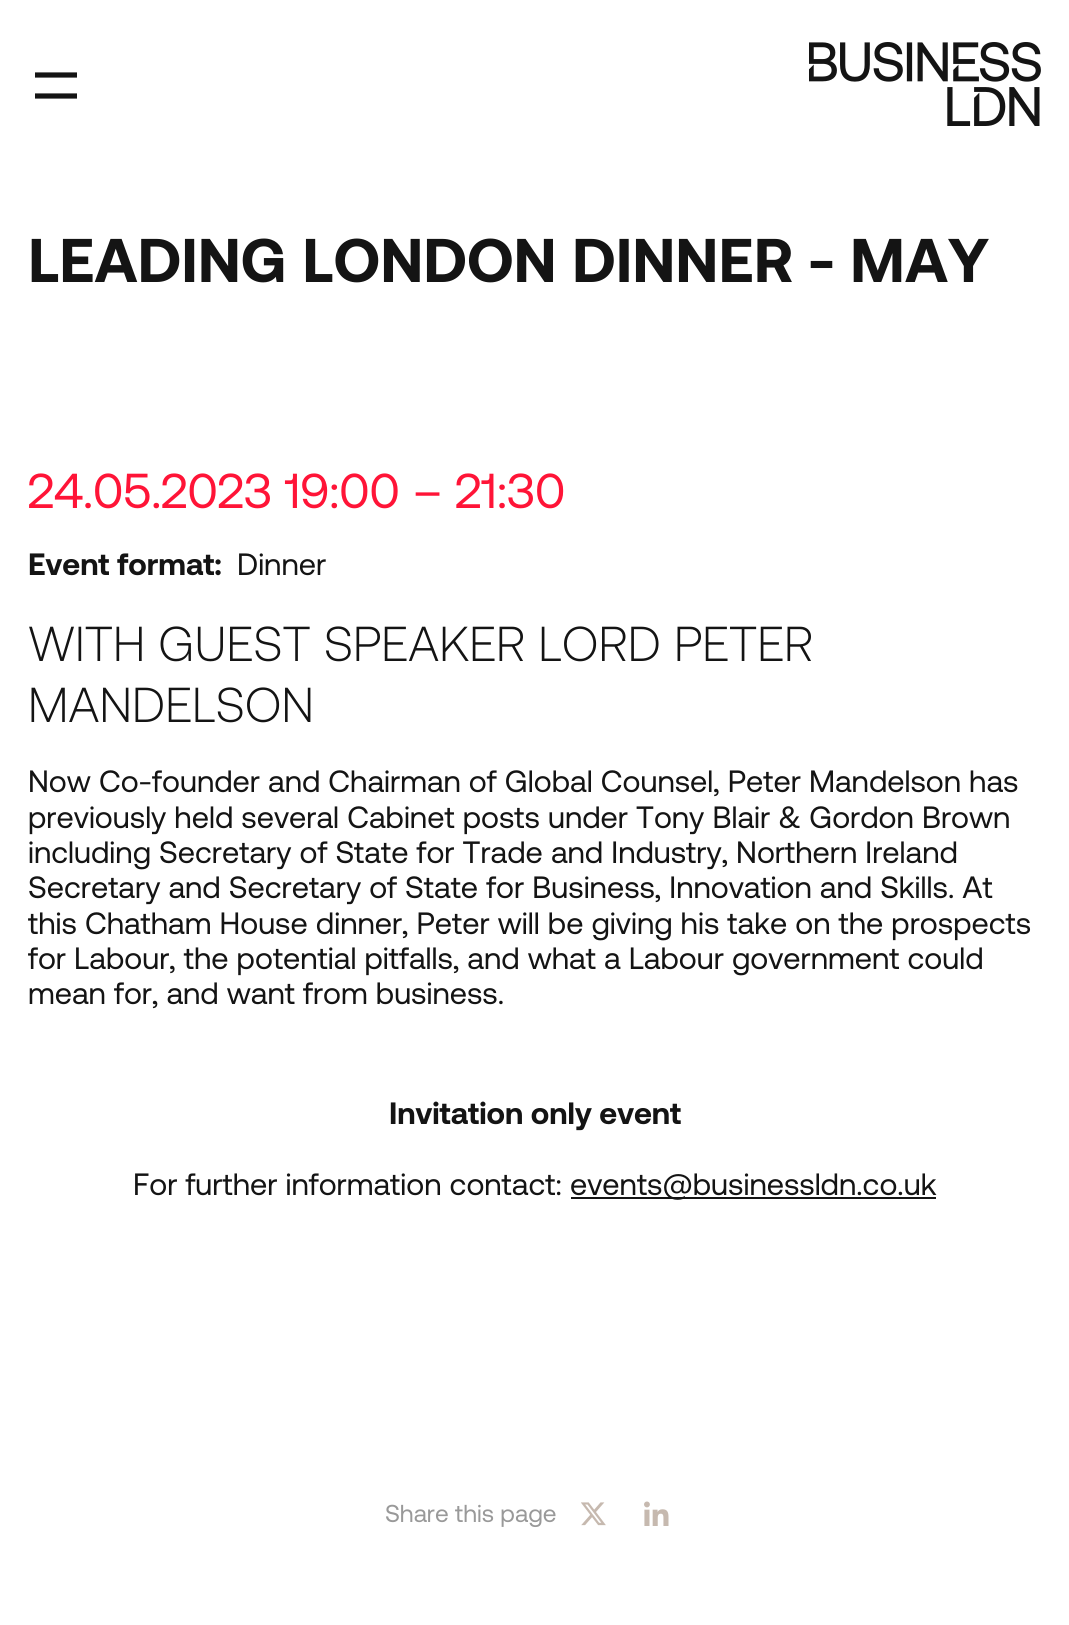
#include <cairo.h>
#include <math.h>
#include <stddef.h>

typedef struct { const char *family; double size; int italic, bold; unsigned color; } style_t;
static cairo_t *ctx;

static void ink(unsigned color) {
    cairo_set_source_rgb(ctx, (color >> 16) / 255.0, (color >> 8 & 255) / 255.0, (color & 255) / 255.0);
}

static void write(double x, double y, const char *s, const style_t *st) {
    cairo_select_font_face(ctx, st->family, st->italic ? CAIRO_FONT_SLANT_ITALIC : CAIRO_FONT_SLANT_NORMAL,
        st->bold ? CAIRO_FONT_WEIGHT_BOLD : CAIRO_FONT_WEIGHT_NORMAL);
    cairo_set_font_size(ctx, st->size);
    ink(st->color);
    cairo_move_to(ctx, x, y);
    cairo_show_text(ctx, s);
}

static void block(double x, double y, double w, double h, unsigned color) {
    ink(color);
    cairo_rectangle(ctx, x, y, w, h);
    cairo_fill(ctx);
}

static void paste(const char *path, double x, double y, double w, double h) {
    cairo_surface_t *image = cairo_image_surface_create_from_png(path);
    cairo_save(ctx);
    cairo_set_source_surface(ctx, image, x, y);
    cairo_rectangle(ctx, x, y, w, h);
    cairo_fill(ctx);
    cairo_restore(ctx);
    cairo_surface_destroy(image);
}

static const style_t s1 = {"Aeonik", 61.6, 0, 1, 0x141414};
static const style_t s2 = {"Aeonik", 49, 0, 0, 0xff1437};
static const style_t s3 = {"Aeonik", 30.8, 0, 1, 0x141414};
static const style_t s4 = {"Aeonik", 30.8, 0, 0, 0x141414};
static const style_t s5 = {"Aeonik Light", 49, 0, 0, 0x141414};
static const style_t s6 = {"Aeonik", 24.5, 0, 0, 0x999999};

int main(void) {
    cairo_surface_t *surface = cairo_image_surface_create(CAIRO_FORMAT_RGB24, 1069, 1625);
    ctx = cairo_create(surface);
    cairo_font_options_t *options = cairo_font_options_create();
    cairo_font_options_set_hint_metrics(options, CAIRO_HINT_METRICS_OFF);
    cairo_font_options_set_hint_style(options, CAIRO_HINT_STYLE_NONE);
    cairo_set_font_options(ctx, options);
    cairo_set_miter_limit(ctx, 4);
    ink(0xffffff);
    cairo_paint(ctx);
    cairo_save(ctx);
    cairo_rectangle(ctx, 35, 72, 42, 28);
    cairo_clip(ctx);
    cairo_new_path(ctx);
    cairo_move_to(ctx, 35, 75);
    cairo_line_to(ctx, 77, 75);
    cairo_move_to(ctx, 35, 96);
    cairo_line_to(ctx, 77, 96);
    ink(0x141414);
    cairo_set_line_width(ctx, 5.2);
    cairo_set_line_cap(ctx, CAIRO_LINE_CAP_ROUND);
    cairo_stroke(ctx);
    cairo_restore(ctx);
    paste("pic1.png", 809, 42, 232, 84);
    write(28, 282, "LEADING LONDON DINNER - MAY", &s1);
    write(28, 508, "24.05.2023 19:00 – 21:30", &s2);
    write(28, 575, "Event format:", &s3);
    write(237, 575, "Dinner", &s4);
    write(28, 661, "WITH GUEST SPEAKER LORD PETER", &s5);
    write(28, 722, "MANDELSON", &s5);
    write(28, 792, "Now Co-founder and Chairman of Global Counsel, Peter Mandelson has", &s4);
    write(28, 828, "previously held several Cabinet posts under Tony Blair & Gordon Brown", &s4);
    write(28, 863, "including Secretary of State for Trade and Industry, Northern Ireland", &s4);
    write(28, 898, "Secretary and Secretary of State for Business, Innovation and Skills. At", &s4);
    write(28, 934, "this Chatham House dinner, Peter will be giving his take on the prospects", &s4);
    write(28, 969, "for Labour, the potential pitfalls, and what a Labour government could", &s4);
    write(28, 1004, "mean for, and want from business.", &s4);
    write(389, 1124, "Invitation only event", &s3);
    write(133, 1195, "For further information contact:", &s4);
    block(571, 1197, 365, 2, 0x141414);
    write(570, 1195, "events@businessldn.co.uk", &s4);
    write(385, 1522, "Share this page", &s6);
    paste("pic2.png", 581, 1502, 25, 24);
    paste("pic3.png", 644, 1501, 25, 25);
    cairo_surface_write_to_png(surface, "screenshot.png");
    cairo_font_options_destroy(options);
    cairo_destroy(ctx);
    cairo_surface_destroy(surface);
    return 0;
}
